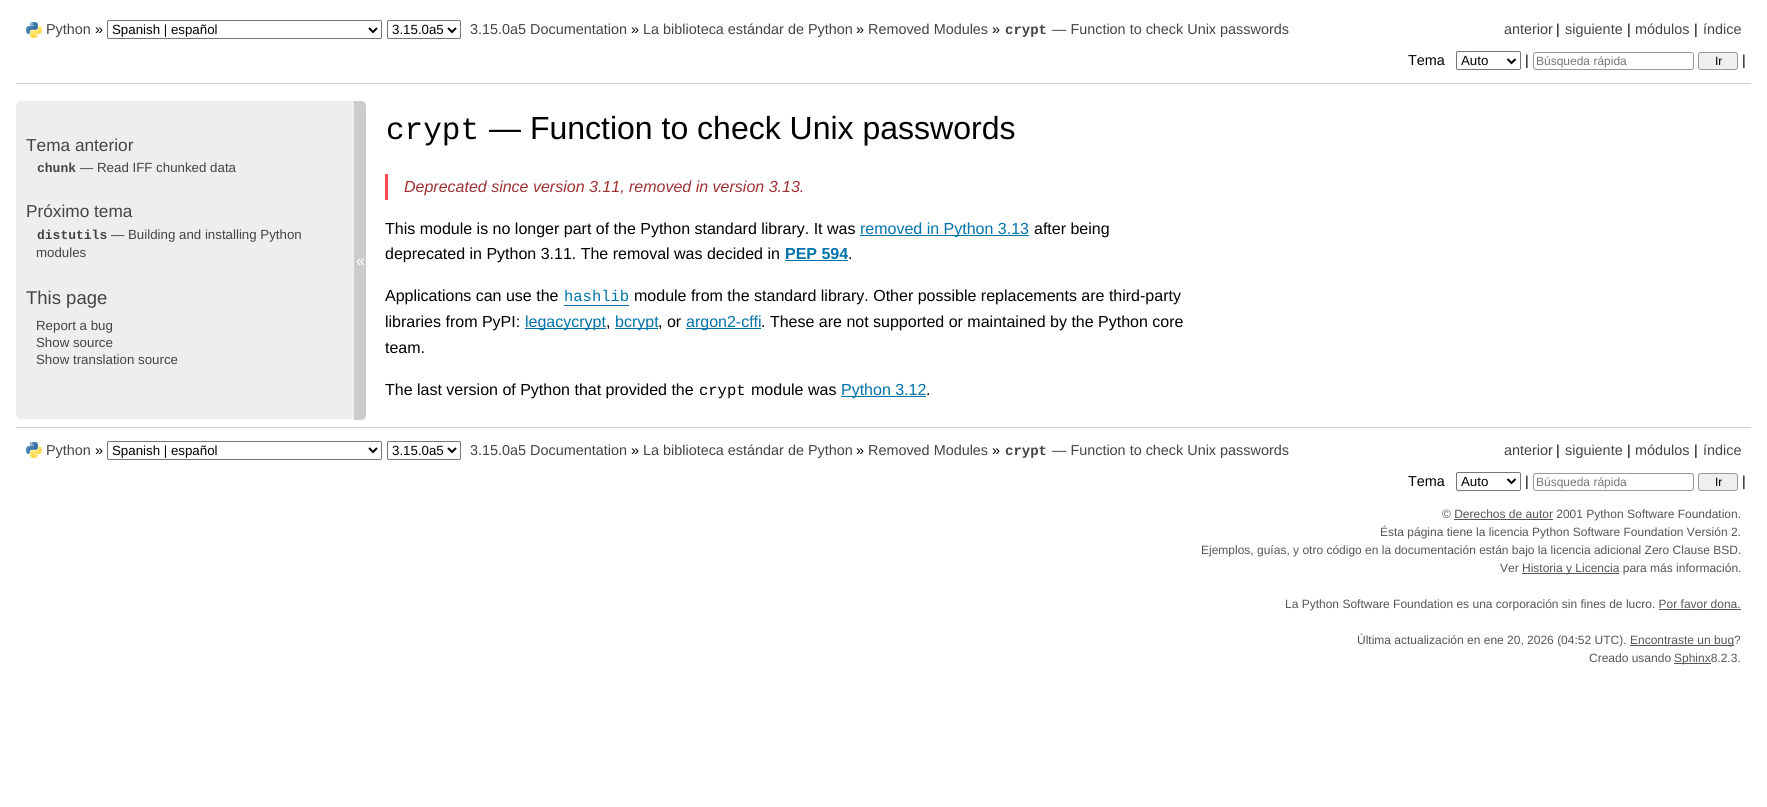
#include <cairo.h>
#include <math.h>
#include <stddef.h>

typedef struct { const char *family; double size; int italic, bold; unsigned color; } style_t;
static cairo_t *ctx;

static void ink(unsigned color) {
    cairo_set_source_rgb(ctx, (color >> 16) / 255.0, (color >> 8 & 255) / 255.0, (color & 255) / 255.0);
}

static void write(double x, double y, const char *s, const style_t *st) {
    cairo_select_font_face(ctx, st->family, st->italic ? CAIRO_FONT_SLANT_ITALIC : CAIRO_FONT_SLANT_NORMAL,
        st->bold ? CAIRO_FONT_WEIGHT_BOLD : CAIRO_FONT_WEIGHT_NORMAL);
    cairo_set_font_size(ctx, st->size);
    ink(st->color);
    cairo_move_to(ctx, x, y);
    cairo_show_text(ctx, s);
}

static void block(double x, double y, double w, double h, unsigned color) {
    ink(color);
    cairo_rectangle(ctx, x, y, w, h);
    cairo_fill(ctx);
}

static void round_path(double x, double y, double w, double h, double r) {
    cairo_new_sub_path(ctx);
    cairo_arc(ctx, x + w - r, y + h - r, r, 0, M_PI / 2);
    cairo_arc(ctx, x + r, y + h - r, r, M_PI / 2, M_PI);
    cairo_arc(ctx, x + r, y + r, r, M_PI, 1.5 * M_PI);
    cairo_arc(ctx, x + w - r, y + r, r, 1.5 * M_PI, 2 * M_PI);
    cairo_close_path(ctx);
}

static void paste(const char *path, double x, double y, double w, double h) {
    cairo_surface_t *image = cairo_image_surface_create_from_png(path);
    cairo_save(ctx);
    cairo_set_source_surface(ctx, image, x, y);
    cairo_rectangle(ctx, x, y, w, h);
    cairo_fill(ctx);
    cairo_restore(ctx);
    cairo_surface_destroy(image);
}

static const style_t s1 = {"Liberation Sans", 14.4, 0, 0, 0x444444};
static const style_t s2 = {"Liberation Sans", 14.4, 0, 0, 0x000000};
static const style_t s3 = {"Liberation Sans", 13.3, 0, 0, 0x000000};
static const style_t s4 = {"Liberation Mono", 14, 0, 1, 0x444444};
static const style_t s5 = {"Liberation Sans", 12, 0, 0, 0x757575};
static const style_t s6 = {"Liberation Sans", 12, 0, 0, 0x000000};
static const style_t s7 = {"Liberation Sans", 17.25, 0, 0, 0x444444};
static const style_t s8 = {"Liberation Mono", 13, 0, 1, 0x444444};
static const style_t s9 = {"Liberation Sans", 13.3, 0, 0, 0x444444};
static const style_t s10 = {"Liberation Sans", 18.5, 0, 0, 0x444444};
static const style_t s11 = {"Liberation Sans", 16, 0, 0, 0xffffff};
static const style_t s12 = {"Liberation Mono", 31, 0, 0, 0x000000};
static const style_t s13 = {"Liberation Sans", 32, 0, 0, 0x000000};
static const style_t s14 = {"Liberation Sans", 16, 1, 0, 0x9f3133};
static const style_t s15 = {"Liberation Sans", 16, 0, 0, 0x000000};
static const style_t s16 = {"Liberation Sans", 16, 0, 0, 0x0072aa};
static const style_t s17 = {"Liberation Sans", 16, 0, 1, 0x0072aa};
static const style_t s18 = {"Liberation Mono", 15.5, 0, 0, 0x0072aa};
static const style_t s19 = {"Liberation Mono", 15.5, 0, 0, 0x000000};
static const style_t s20 = {"Liberation Sans", 12, 0, 0, 0x555555};

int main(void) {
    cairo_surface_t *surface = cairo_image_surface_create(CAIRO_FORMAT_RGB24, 1767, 807);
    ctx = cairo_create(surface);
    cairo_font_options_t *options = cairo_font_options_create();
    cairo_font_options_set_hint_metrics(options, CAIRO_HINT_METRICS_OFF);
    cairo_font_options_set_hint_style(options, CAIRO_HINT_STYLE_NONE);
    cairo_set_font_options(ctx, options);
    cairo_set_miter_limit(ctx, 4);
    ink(0xffffff);
    cairo_paint(ctx);
    block(16, 83, 1735, 1, 0xcccccc);
    paste("pic1.png", 26, 22, 16, 16);
    write(46, 34, "Python", &s1);
    write(95, 34, "»", &s2);
    round_path(107.5, 20.5, 274, 18, 1.5);
    ink(0x767676);
    cairo_set_line_width(ctx, 1);
    cairo_stroke(ctx);
    cairo_new_path(ctx);
    cairo_move_to(ctx, 369, 28);
    cairo_line_to(ctx, 373, 32);
    cairo_line_to(ctx, 377, 28);
    ink(0x000000);
    cairo_set_line_width(ctx, 2);
    cairo_stroke(ctx);
    write(112, 34, "Spanish | español", &s3);
    round_path(387.5, 20.5, 73, 18, 1.5);
    ink(0x767676);
    cairo_set_line_width(ctx, 1);
    cairo_stroke(ctx);
    cairo_new_path(ctx);
    cairo_move_to(ctx, 448, 28);
    cairo_line_to(ctx, 452, 32);
    cairo_line_to(ctx, 456, 28);
    ink(0x000000);
    cairo_set_line_width(ctx, 2);
    cairo_stroke(ctx);
    write(392, 34, "3.15.0a5", &s3);
    write(470, 34, "3.15.0a5 Documentation", &s1);
    write(631, 34, "»", &s2);
    write(643, 34, "La biblioteca estándar de Python", &s1);
    write(856, 34, "»", &s2);
    write(868, 34, "Removed Modules", &s1);
    write(992, 34, "»", &s2);
    write(1005, 34, "crypt", &s4);
    write(1052, 34, "— Function to check Unix passwords", &s1);
    write(1504, 34, "anterior", &s1);
    write(1556, 34, "|", &s2);
    write(1565, 34, "siguiente", &s1);
    write(1627, 34, "|", &s2);
    write(1635, 34, "módulos", &s1);
    write(1694, 34, "|", &s2);
    write(1703, 34, "índice", &s1);
    write(1408, 65, "Tema", &s2);
    round_path(1456.5, 51.5, 64, 18, 1.5);
    ink(0x767676);
    cairo_set_line_width(ctx, 1);
    cairo_stroke(ctx);
    cairo_new_path(ctx);
    cairo_move_to(ctx, 1507.5, 59);
    cairo_line_to(ctx, 1511.5, 63);
    cairo_line_to(ctx, 1515.5, 59);
    ink(0x000000);
    cairo_set_line_width(ctx, 2);
    cairo_stroke(ctx);
    write(1461, 65, "Auto", &s3);
    write(1525, 65, "|", &s2);
    round_path(1533.5, 52.5, 160, 17, 2.5);
    ink(0x999999);
    cairo_set_line_width(ctx, 1);
    cairo_stroke(ctx);
    write(1536, 65, "Búsqueda rápida", &s5);
    ink(0xefefef);
    round_path(1698.5, 52.5, 39, 17, 2.5);
    cairo_fill_preserve(ctx);
    ink(0x999999);
    cairo_stroke(ctx);
    write(1715, 65, "Ir", &s6);
    write(1742, 65, "|", &s2);
    ink(0xeeeeee);
    round_path(16, 101, 350, 318, 5);
    cairo_fill(ctx);
    write(26, 151, "Tema anterior", &s7);
    write(37, 172, "chunk", &s8);
    write(80, 172, "— Read IFF chunked data", &s9);
    write(26, 217, "Próximo tema", &s7);
    write(37, 239, "distutils", &s8);
    write(111, 239, "— Building and installing Python", &s9);
    write(36, 257, "modules", &s9);
    write(26, 304, "This page", &s10);
    write(36, 330, "Report a bug", &s9);
    write(36, 347, "Show source", &s9);
    write(36, 364, "Show translation source", &s9);
    ink(0xcccccc);
    cairo_new_path(ctx);
    cairo_move_to(ctx, 354, 101);
    cairo_line_to(ctx, 361, 101);
    cairo_curve_to(ctx, 364, 101, 366, 103, 366, 106);
    cairo_line_to(ctx, 366, 415);
    cairo_curve_to(ctx, 366, 418, 364, 420, 361, 420);
    cairo_line_to(ctx, 354, 420);
    cairo_close_path(ctx);
    cairo_fill(ctx);
    write(356, 266, "«", &s11);
    write(386, 139, "crypt", &s12);
    write(489, 139, "— Function to check Unix passwords", &s13);
    block(385, 174, 3, 26, 0xf44c4e);
    write(404, 192, "Deprecated since version 3.11, removed in version 3.13.", &s14);
    write(385, 234, "This module is no longer part of the Python standard library. It was", &s15);
    block(860, 235, 169, 1, 0x0072aa);
    write(860, 234, "removed in Python 3.13", &s16);
    write(1034, 234, "after being", &s15);
    write(385, 259, "deprecated in Python 3.11. The removal was decided in", &s15);
    write(785, 259, "PEP 594", &s17);
    block(785, 260, 63, 1, 0x0072aa);
    write(848, 259, ".", &s15);
    write(385, 301, "Applications can use the", &s15);
    write(564, 301, "hashlib", &s18);
    block(564, 305, 65, 1, 0x0072aa);
    write(634, 301, "module from the standard library. Other possible replacements are third-party", &s15);
    write(385, 327, "libraries from PyPI:", &s15);
    block(525, 328, 81, 1, 0x0072aa);
    write(525, 327, "legacycrypt", &s16);
    write(606, 327, ",", &s15);
    block(615, 328, 43, 1, 0x0072aa);
    write(615, 327, "bcrypt", &s16);
    write(658, 327, ", or", &s15);
    block(686, 328, 75, 1, 0x0072aa);
    write(686, 327, "argon2-cffi", &s16);
    write(761, 327, ". These are not supported or maintained by the Python core", &s15);
    write(385, 353, "team.", &s15);
    write(385, 395, "The last version of Python that provided the", &s15);
    write(699, 395, "crypt", &s19);
    write(751, 395, "module was", &s15);
    block(841, 396, 85, 1, 0x0072aa);
    write(841, 395, "Python 3.12", &s16);
    write(926, 395, ".", &s15);
    block(16, 427, 1735, 1, 0xcccccc);
    paste("pic1.png", 26, 442, 16, 16);
    write(46, 455, "Python", &s1);
    write(95, 455, "»", &s2);
    round_path(107.5, 441.5, 274, 18, 1.5);
    ink(0x767676);
    cairo_stroke(ctx);
    cairo_new_path(ctx);
    cairo_move_to(ctx, 369, 448);
    cairo_line_to(ctx, 373, 452);
    cairo_line_to(ctx, 377, 448);
    ink(0x000000);
    cairo_set_line_width(ctx, 2);
    cairo_stroke(ctx);
    write(112, 455, "Spanish | español", &s3);
    round_path(387.5, 441.5, 73, 18, 1.5);
    ink(0x767676);
    cairo_set_line_width(ctx, 1);
    cairo_stroke(ctx);
    cairo_new_path(ctx);
    cairo_move_to(ctx, 448, 448);
    cairo_line_to(ctx, 452, 452);
    cairo_line_to(ctx, 456, 448);
    ink(0x000000);
    cairo_set_line_width(ctx, 2);
    cairo_stroke(ctx);
    write(392, 455, "3.15.0a5", &s3);
    write(470, 455, "3.15.0a5 Documentation", &s1);
    write(631, 455, "»", &s2);
    write(643, 455, "La biblioteca estándar de Python", &s1);
    write(856, 455, "»", &s2);
    write(868, 455, "Removed Modules", &s1);
    write(992, 455, "»", &s2);
    write(1005, 455, "crypt", &s4);
    write(1052, 455, "— Function to check Unix passwords", &s1);
    write(1504, 455, "anterior", &s1);
    write(1556, 455, "|", &s2);
    write(1565, 455, "siguiente", &s1);
    write(1627, 455, "|", &s2);
    write(1635, 455, "módulos", &s1);
    write(1694, 455, "|", &s2);
    write(1703, 455, "índice", &s1);
    write(1408, 486, "Tema", &s2);
    round_path(1456.5, 472.5, 64, 18, 1.5);
    ink(0x767676);
    cairo_set_line_width(ctx, 1);
    cairo_stroke(ctx);
    cairo_new_path(ctx);
    cairo_move_to(ctx, 1507.5, 479);
    cairo_line_to(ctx, 1511.5, 483);
    cairo_line_to(ctx, 1515.5, 479);
    ink(0x000000);
    cairo_set_line_width(ctx, 2);
    cairo_stroke(ctx);
    write(1461, 486, "Auto", &s3);
    write(1525, 486, "|", &s2);
    round_path(1533.5, 473.5, 160, 17, 2.5);
    ink(0x999999);
    cairo_set_line_width(ctx, 1);
    cairo_stroke(ctx);
    write(1536, 486, "Búsqueda rápida", &s5);
    ink(0xefefef);
    round_path(1698.5, 473.5, 39, 17, 2.5);
    cairo_fill_preserve(ctx);
    ink(0x999999);
    cairo_stroke(ctx);
    write(1715, 486, "Ir", &s6);
    write(1742, 486, "|", &s2);
    write(1442, 518, "© Derechos de autor 2001 Python Software Foundation.", &s20);
    block(1454, 519, 99, 1, 0x555555);
    write(1380, 536, "Ésta página tiene la licencia Python Software Foundation Versión 2.", &s20);
    write(1201, 554, "Ejemplos, guías, y otro código en la documentación están bajo la licencia adicional Zero Clause BSD.", &s20);
    write(1500, 572, "Ver", &s20);
    block(1522, 573, 97, 1, 0x555555);
    write(1522, 572, "Historia y Licencia para más información.", &s20);
    write(1285, 608, "La Python Software Foundation es una corporación sin fines de lucro. Por favor dona.", &s20);
    block(1659, 609, 82, 1, 0x555555);
    write(1357, 644, "Última actualización en ene 20, 2026 (04:52 UTC).", &s20);
    block(1630, 645, 104, 1, 0x555555);
    write(1630, 644, "Encontraste un bug?", &s20);
    write(1589, 662, "Creado usando", &s20);
    block(1674, 663, 37, 1, 0x555555);
    write(1674, 662, "Sphinx8.2.3.", &s20);
    cairo_surface_write_to_png(surface, "screenshot.png");
    cairo_font_options_destroy(options);
    cairo_destroy(ctx);
    cairo_surface_destroy(surface);
    return 0;
}
